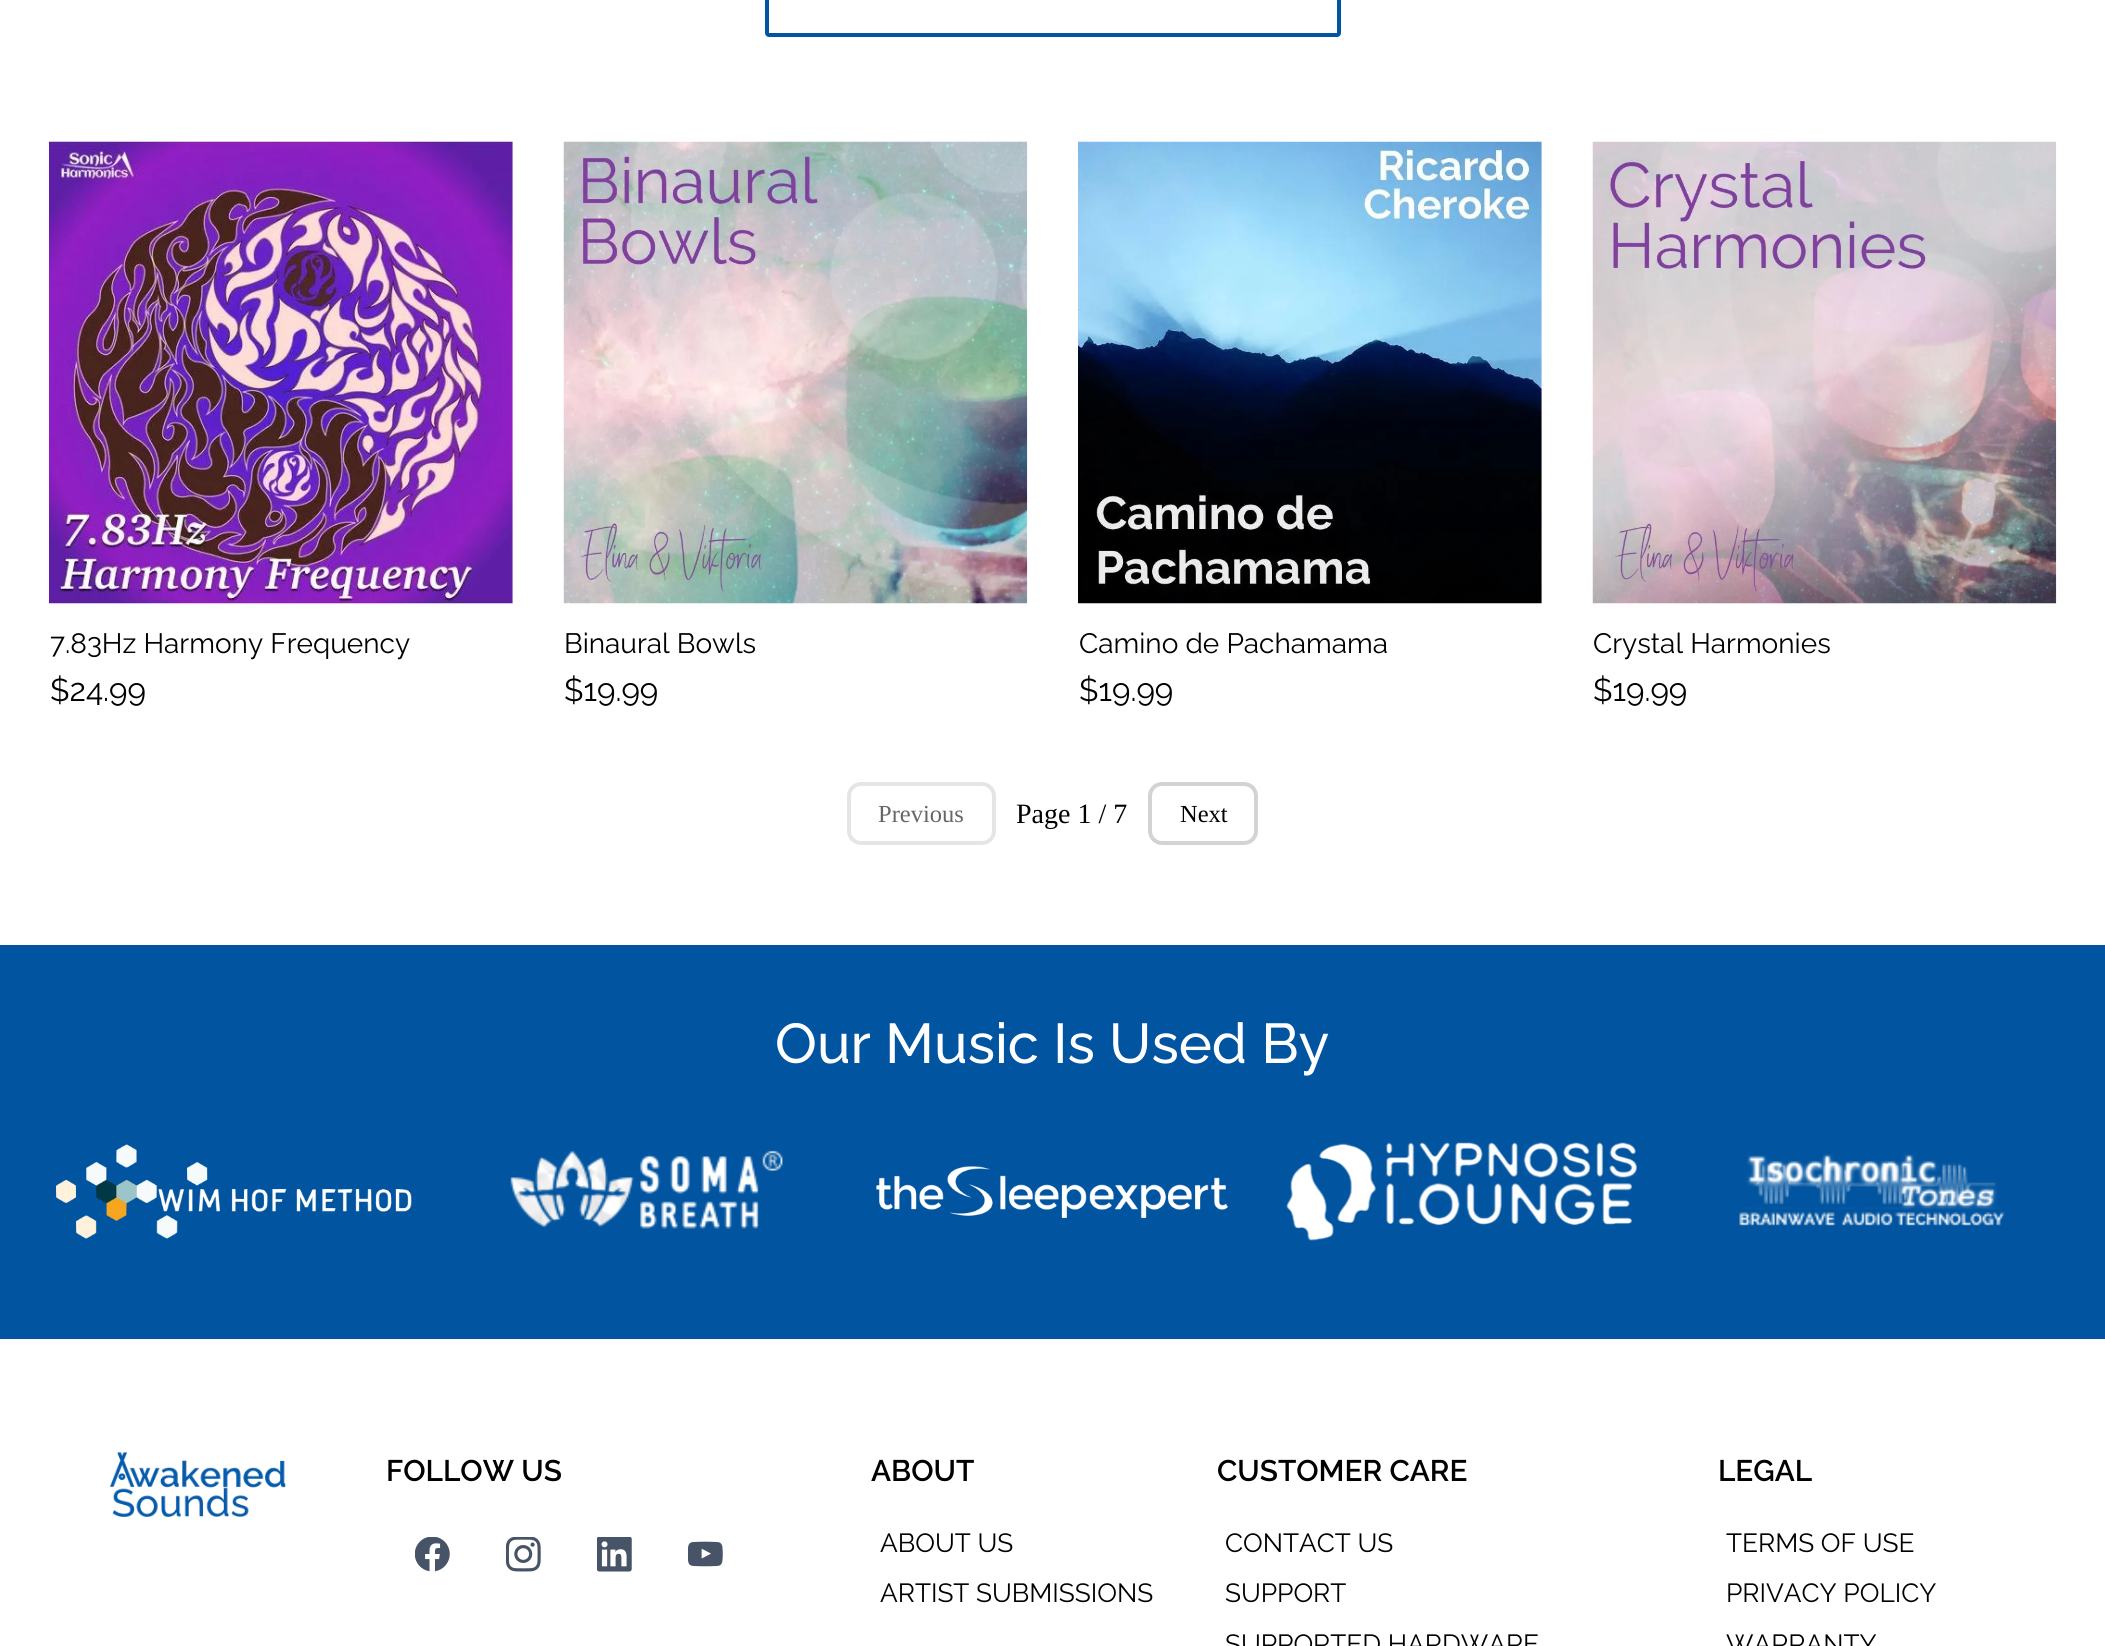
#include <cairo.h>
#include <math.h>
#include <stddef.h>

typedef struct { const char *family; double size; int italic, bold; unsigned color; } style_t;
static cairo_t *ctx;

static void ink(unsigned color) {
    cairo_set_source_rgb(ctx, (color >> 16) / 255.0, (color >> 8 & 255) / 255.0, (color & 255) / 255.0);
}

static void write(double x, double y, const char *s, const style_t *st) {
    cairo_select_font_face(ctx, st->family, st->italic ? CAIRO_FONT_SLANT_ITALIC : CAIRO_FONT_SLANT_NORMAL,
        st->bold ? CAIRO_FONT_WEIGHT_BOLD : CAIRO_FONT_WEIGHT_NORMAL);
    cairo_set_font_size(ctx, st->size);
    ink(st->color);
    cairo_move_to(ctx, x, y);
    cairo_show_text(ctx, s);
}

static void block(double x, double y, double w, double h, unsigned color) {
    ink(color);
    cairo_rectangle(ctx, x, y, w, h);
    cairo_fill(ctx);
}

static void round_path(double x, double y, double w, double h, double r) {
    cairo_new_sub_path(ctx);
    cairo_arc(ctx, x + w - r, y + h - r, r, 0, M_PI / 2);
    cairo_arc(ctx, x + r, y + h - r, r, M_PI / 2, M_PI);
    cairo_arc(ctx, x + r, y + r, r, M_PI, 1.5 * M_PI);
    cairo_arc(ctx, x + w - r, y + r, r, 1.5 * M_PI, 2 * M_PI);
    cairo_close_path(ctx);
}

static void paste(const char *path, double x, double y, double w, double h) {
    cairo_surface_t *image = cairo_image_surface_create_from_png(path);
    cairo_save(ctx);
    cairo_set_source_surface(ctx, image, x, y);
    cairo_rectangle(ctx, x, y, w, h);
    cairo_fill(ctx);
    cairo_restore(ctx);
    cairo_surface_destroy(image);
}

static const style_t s1 = {"Raleway", 28, 0, 0, 0x000000};
static const style_t s2 = {"Raleway", 31.5, 0, 0, 0x000000};
static const style_t s3 = {"Liberation Serif", 24.5, 0, 0, 0x666666};
static const style_t s4 = {"Liberation Serif", 28, 0, 0, 0x000000};
static const style_t s5 = {"Liberation Serif", 24.5, 0, 0, 0x000000};
static const style_t s6 = {"Raleway Medium", 56, 0, 0, 0xffffff};
static const style_t s7 = {"Raleway SemiBold", 29.75, 0, 0, 0x000000};
static const style_t s8 = {"Raleway", 26.25, 0, 0, 0x000000};

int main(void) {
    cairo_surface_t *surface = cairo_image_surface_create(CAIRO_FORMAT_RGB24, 2105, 1646);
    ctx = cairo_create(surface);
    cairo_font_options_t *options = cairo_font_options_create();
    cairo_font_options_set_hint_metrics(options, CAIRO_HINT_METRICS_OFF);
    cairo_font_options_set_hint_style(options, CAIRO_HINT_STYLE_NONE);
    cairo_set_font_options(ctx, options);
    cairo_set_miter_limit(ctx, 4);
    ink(0xffffff);
    cairo_paint(ctx);
    round_path(767, -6, 572, 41, 2);
    ink(0x01549f);
    cairo_set_line_width(ctx, 4);
    cairo_stroke(ctx);
    paste("pic1.png", 49, 141, 464, 463);
    write(50, 653, "7.83Hz Harmony Frequency", &s1);
    write(50, 701, "$24.99", &s2);
    paste("pic2.png", 563, 141, 465, 463);
    write(564, 653, "Binaural Bowls", &s1);
    write(564, 701, "$19.99", &s2);
    paste("pic3.png", 1078, 141, 464, 463);
    write(1079, 653, "Camino de Pachamama", &s1);
    write(1079, 701, "$19.99", &s2);
    paste("pic4.png", 1592, 141, 465, 463);
    write(1593, 653, "Crystal Harmonies", &s1);
    write(1593, 701, "$19.99", &s2);
    round_path(849, 784, 145, 59, 12);
    ink(0xe5e5e5);
    cairo_stroke(ctx);
    write(878, 822, "Previous", &s3);
    write(1016, 823, "Page 1 / 7", &s4);
    round_path(1150, 784, 106, 59, 12);
    ink(0xd3d3d3);
    cairo_stroke(ctx);
    write(1180, 822, "Next", &s5);
    block(0, 945, 2105, 394, 0x01549f);
    write(775, 1063, "Our Music Is Used By", &s6);
    paste("pic5.png", 56, 1144, 356, 95);
    paste("pic6.png", 510, 1150, 273, 79);
    paste("pic7.png", 876, 1166, 352, 53);
    paste("pic8.png", 1286, 1142, 351, 99);
    paste("pic9.png", 1739, 1154, 266, 72);
    paste("pic10.png", 110, 1452, 176, 65);
    write(386, 1481, "FOLLOW US", &s7);
    paste("pic11.png", 415, 1537, 35, 35);
    paste("pic12.png", 506, 1537, 35, 35);
    paste("pic13.png", 597, 1537, 35, 35);
    paste("pic14.png", 688, 1541, 35, 26);
    write(871, 1481, "ABOUT", &s7);
    write(880, 1552, "ABOUT US", &s8);
    write(880, 1602, "ARTIST SUBMISSIONS", &s8);
    write(1217, 1481, "CUSTOMER CARE", &s7);
    write(1225, 1552, "CONTACT US", &s8);
    write(1225, 1602, "SUPPORT", &s8);
    write(1225, 1653, "SUPPORTED HARDWARE", &s8);
    write(1718, 1481, "LEGAL", &s7);
    write(1726, 1552, "TERMS OF USE", &s8);
    write(1726, 1602, "PRIVACY POLICY", &s8);
    write(1726, 1653, "WARRANTY", &s8);
    cairo_surface_write_to_png(surface, "screenshot.png");
    cairo_font_options_destroy(options);
    cairo_destroy(ctx);
    cairo_surface_destroy(surface);
    return 0;
}
